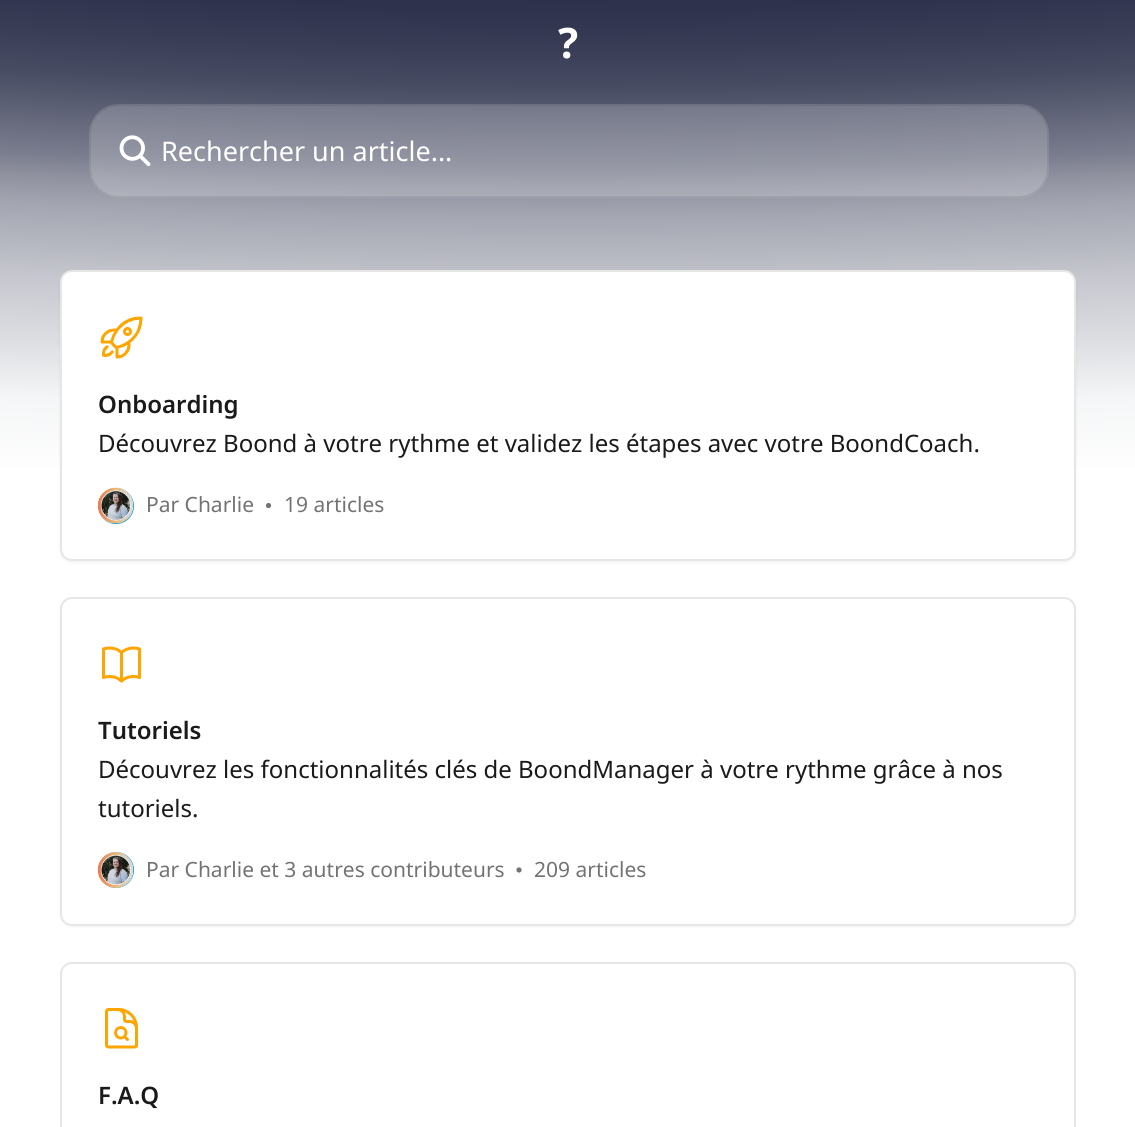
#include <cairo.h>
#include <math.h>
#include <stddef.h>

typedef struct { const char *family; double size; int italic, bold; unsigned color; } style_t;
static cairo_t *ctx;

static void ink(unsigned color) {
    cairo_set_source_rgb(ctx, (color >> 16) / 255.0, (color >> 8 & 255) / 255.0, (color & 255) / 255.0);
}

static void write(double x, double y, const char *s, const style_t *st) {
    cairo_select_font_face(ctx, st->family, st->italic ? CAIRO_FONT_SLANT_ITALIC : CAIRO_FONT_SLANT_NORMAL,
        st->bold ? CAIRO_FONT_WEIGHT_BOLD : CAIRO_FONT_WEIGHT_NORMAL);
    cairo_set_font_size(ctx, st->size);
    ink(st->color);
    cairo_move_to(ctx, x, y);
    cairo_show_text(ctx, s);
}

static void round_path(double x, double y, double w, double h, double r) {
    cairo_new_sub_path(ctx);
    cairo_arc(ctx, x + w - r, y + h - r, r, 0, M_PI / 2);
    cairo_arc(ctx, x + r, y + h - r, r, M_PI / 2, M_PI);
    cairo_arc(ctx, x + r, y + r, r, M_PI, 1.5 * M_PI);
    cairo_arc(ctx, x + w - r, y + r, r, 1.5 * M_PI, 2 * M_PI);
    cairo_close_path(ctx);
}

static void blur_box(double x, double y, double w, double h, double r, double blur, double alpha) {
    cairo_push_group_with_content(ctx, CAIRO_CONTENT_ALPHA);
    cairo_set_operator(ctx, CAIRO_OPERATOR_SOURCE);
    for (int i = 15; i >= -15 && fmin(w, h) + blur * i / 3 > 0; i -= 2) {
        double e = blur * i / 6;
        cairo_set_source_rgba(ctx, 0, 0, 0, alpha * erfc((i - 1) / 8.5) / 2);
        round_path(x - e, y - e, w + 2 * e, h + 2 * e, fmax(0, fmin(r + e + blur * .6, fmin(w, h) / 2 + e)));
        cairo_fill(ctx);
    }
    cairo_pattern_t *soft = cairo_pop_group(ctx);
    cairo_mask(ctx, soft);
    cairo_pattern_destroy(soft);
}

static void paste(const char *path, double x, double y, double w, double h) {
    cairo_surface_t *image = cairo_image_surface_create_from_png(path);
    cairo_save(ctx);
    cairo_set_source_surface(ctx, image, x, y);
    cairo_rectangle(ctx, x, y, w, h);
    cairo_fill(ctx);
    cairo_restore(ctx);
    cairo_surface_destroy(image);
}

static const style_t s1 = {"Noto Sans", 42, 0, 1, 0xffffff};
static const style_t s2 = {"Noto Sans", 27, 0, 0, 0xffffff};
static const style_t s3 = {"Noto Sans SemiBold", 24, 0, 0, 0x1a1a1a};
static const style_t s4 = {"Noto Sans", 24, 0, 0, 0x1a1a1a};
static const style_t s5 = {"Noto Sans", 21, 0, 0, 0x737373};

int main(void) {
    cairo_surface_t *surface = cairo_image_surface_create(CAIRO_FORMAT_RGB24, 1135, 1127);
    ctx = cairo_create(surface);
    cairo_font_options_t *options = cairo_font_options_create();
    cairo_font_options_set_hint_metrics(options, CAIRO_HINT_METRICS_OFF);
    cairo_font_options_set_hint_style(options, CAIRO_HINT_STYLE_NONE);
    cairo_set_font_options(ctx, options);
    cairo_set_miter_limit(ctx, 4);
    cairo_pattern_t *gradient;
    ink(0xffffff);
    cairo_paint(ctx);
    gradient = cairo_pattern_create_radial(0, 0, 0, 0, 0, 1);
    cairo_pattern_set_matrix(gradient, &(cairo_matrix_t){1.0 / 3786, 0, 0, 1.0 / 666, -1.0 * 568 / 3786, -1.0 * -180 / 666});
    cairo_pattern_add_color_stop_rgba(gradient, 0, 0.122, 0.141, 0.251, 1);
    cairo_pattern_add_color_stop_rgba(gradient, 0.12, 0.129, 0.149, 0.259, 1);
    cairo_pattern_add_color_stop_rgba(gradient, 0.21, 0.153, 0.173, 0.278, 1);
    cairo_pattern_add_color_stop_rgba(gradient, 0.29, 0.184, 0.2, 0.302, 1);
    cairo_pattern_add_color_stop_rgba(gradient, 0.35, 0.227, 0.243, 0.341, 1);
    cairo_pattern_add_color_stop_rgba(gradient, 0.4, 0.278, 0.294, 0.384, 1);
    cairo_pattern_add_color_stop_rgba(gradient, 0.44, 0.341, 0.357, 0.439, 1);
    cairo_pattern_add_color_stop_rgba(gradient, 0.48, 0.412, 0.424, 0.498, 1);
    cairo_pattern_add_color_stop_rgba(gradient, 0.52, 0.478, 0.49, 0.557, 1);
    cairo_pattern_add_color_stop_rgba(gradient, 0.55, 0.557, 0.565, 0.62, 1);
    cairo_pattern_add_color_stop_rgba(gradient, 0.59, 0.635, 0.643, 0.69, 1);
    cairo_pattern_add_color_stop_rgba(gradient, 0.65, 0.71, 0.718, 0.753, 1);
    cairo_pattern_add_color_stop_rgba(gradient, 0.71, 0.788, 0.792, 0.82, 1);
    cairo_pattern_add_color_stop_rgba(gradient, 0.79, 0.863, 0.867, 0.882, 1);
    cairo_pattern_add_color_stop_rgba(gradient, 0.88, 0.961, 0.965, 0.969, 1);
    cairo_pattern_add_color_stop_rgba(gradient, 1, 1, 1, 1, 1);
    cairo_set_source(ctx, gradient);
    cairo_pattern_destroy(gradient);
    cairo_rectangle(ctx, 0, 0, 1135, 467);
    cairo_fill(ctx);
    write(558, 58, "?", &s1);
    cairo_set_source_rgba(ctx, 1, 1, 1, 0.2);
    round_path(89, 104, 960, 94, 30);
    cairo_fill(ctx);
    round_path(90, 105, 958, 92, 29);
    cairo_set_source_rgba(ctx, 0, 0, 0, 0.08);
    cairo_stroke(ctx);
    paste("pic1.png", 119, 135, 32, 32);
    write(161, 161, "Rechercher un article...", &s2);
    ink(0x000000);
    blur_box(60, 272, 1016, 291, 12, 1.5, 0.05);
    ink(0xffffff);
    round_path(61, 271, 1014, 289, 11);
    cairo_fill_preserve(ctx);
    ink(0xe6e6e6);
    cairo_stroke(ctx);
    paste("pic2.png", 100, 316, 43, 43);
    write(98, 413, "Onboarding", &s3);
    write(98, 452, "Découvrez Boond à votre rythme et validez les étapes avec votre BoondCoach.", &s4);
    ink(0x0099cc);
    cairo_new_path(ctx);
    cairo_arc(ctx, 116, 506, 18, 0, 2 * M_PI);
    cairo_fill(ctx);
    paste("pic3.png", 97, 487, 37, 37);
    write(146, 512, "Par Charlie", &s5);
    paste("pic4.png", 266, 503, 6, 6);
    write(284, 512, "19 articles", &s5);
    ink(0x000000);
    blur_box(60, 599, 1016, 328, 12, 1.5, 0.05);
    ink(0xffffff);
    round_path(61, 598, 1014, 327, 11);
    cairo_fill_preserve(ctx);
    ink(0xe6e6e6);
    cairo_stroke(ctx);
    paste("pic5.png", 102, 646, 39, 37);
    write(98, 739, "Tutoriels", &s3);
    write(98, 778, "Découvrez les fonctionnalités clés de BoondManager à votre rythme grâce à nos", &s4);
    write(98, 817, "tutoriels.", &s4);
    ink(0x0099cc);
    cairo_new_path(ctx);
    cairo_arc(ctx, 116, 870, 18, 0, 2 * M_PI);
    cairo_fill(ctx);
    paste("pic6.png", 97, 852, 37, 36);
    write(146, 877, "Par Charlie et 3 autres contributeurs", &s5);
    paste("pic7.png", 516, 867, 6, 6);
    write(534, 877, "209 articles", &s5);
    round_path(61, 963, 1014, 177, 11);
    ink(0xe6e6e6);
    cairo_stroke(ctx);
    paste("pic8.png", 105, 1008, 33, 41);
    write(98, 1104, "F.A.Q", &s3);
    cairo_surface_write_to_png(surface, "screenshot.png");
    cairo_font_options_destroy(options);
    cairo_destroy(ctx);
    cairo_surface_destroy(surface);
    return 0;
}
